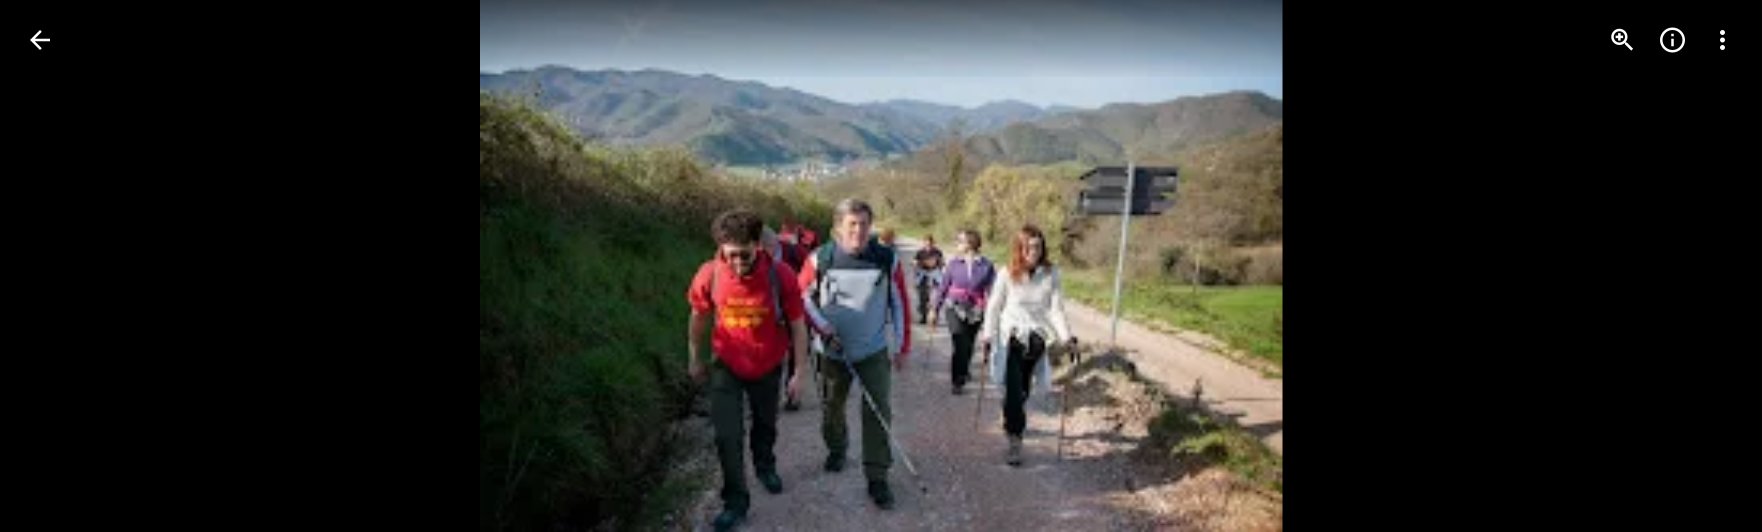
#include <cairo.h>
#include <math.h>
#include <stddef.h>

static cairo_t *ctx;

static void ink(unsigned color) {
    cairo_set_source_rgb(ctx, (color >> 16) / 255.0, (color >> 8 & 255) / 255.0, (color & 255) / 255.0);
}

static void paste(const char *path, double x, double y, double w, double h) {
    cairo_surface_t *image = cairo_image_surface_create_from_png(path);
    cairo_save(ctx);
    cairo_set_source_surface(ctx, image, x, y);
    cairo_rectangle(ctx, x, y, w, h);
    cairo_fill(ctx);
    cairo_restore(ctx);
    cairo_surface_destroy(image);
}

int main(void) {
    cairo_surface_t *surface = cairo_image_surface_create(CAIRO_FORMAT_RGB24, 1762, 532);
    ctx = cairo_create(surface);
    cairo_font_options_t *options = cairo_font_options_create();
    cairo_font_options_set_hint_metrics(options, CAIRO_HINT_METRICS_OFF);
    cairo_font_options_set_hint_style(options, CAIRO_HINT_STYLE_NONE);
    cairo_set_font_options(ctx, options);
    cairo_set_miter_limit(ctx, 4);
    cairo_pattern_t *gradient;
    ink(0x000000);
    cairo_paint(ctx);
    paste("pic5.png", 480, 0, 803, 532);
    gradient = cairo_pattern_create_linear(881, 0, 881, 80);
    cairo_pattern_add_color_stop_rgba(gradient, 0, 0, 0, 0, 0.6);
    cairo_pattern_add_color_stop_rgba(gradient, 1, 0, 0, 0, 0);
    cairo_set_source(ctx, gradient);
    cairo_pattern_destroy(gradient);
    cairo_rectangle(ctx, 480, 0, 803, 77);
    cairo_fill(ctx);
    paste("pic1.png", 30, 30, 20, 20);
    paste("pic2.png", 1611, 28, 22, 23);
    paste("pic3.png", 1660, 27, 25, 26);
    paste("pic4.png", 1720, 30, 5, 20);
    cairo_surface_write_to_png(surface, "screenshot.png");
    cairo_font_options_destroy(options);
    cairo_destroy(ctx);
    cairo_surface_destroy(surface);
    return 0;
}
